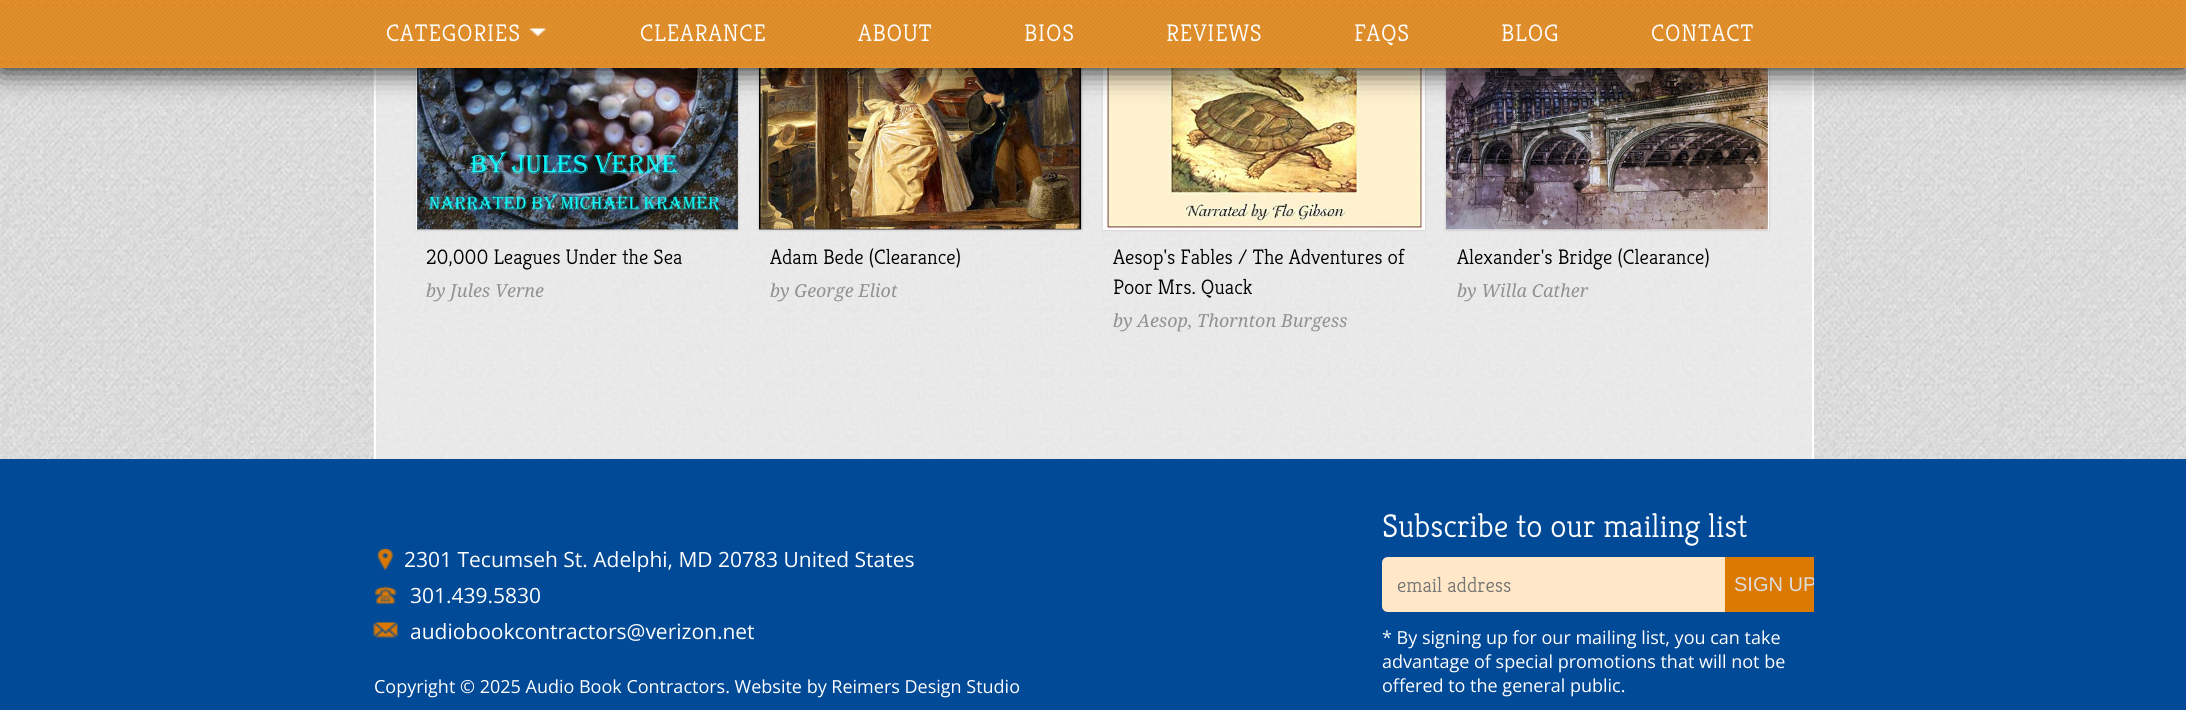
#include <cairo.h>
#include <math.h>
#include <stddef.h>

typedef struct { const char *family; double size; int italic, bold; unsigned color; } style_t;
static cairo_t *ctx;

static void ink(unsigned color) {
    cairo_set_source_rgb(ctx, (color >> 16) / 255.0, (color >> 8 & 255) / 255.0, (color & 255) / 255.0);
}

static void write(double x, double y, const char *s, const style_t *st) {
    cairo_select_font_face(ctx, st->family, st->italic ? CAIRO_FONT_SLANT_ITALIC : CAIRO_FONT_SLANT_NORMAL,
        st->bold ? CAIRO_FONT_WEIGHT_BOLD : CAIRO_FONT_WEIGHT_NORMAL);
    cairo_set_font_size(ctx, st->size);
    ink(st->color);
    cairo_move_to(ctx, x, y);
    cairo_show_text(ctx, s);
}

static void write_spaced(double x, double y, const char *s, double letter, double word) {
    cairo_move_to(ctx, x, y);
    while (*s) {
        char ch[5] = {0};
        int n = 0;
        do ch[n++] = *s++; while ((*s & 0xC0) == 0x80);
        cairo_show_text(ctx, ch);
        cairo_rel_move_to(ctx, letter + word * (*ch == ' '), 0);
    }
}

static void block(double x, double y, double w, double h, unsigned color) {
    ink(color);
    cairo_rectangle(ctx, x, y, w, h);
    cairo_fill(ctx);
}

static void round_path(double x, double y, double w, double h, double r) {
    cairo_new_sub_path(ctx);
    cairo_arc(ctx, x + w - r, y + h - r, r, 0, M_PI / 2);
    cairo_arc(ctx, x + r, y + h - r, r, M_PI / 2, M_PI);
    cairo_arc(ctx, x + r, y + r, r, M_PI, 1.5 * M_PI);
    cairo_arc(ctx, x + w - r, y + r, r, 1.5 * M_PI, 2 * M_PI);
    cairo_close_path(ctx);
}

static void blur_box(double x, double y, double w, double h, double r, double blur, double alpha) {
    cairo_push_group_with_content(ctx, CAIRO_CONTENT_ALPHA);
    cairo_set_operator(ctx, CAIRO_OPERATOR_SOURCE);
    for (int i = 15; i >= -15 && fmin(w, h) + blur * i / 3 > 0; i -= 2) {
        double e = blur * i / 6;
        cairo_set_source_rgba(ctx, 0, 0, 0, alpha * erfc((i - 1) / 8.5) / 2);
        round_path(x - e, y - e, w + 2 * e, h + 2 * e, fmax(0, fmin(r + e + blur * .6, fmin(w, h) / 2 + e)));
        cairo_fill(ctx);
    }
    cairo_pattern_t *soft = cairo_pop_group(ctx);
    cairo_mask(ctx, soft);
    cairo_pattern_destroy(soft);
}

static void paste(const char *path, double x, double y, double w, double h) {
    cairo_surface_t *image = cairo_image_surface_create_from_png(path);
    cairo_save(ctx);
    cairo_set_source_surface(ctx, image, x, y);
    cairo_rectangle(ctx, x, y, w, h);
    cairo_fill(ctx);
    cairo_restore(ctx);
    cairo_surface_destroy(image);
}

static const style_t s1 = {"Kreon Light", 21, 0, 0, 0x000000};
static const style_t s2 = {"Droid Serif", 18, 1, 0, 0x919191};
static const style_t s3 = {"Open Sans", 21, 0, 0, 0xffffff};
static const style_t s4 = {"Open Sans", 18, 0, 0, 0xffffff};
static const style_t s5 = {"Kreon Light", 33, 0, 0, 0xffffff};
static const style_t s6 = {"Kreon Light", 21, 0, 0, 0x757575};
static const style_t s7 = {"Liberation Sans", 20, 0, 0, 0xdddddd};

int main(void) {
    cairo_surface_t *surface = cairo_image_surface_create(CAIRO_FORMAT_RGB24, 2186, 710);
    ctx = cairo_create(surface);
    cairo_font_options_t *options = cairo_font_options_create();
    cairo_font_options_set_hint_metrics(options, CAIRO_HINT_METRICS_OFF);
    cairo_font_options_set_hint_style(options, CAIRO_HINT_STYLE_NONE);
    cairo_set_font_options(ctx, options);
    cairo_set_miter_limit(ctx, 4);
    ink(0xffffff);
    cairo_paint(ctx);
    paste("pic1.png", 0, 68, 2186, 391);
    paste("pic4.png", 373, 68, 1439, 391);
    block(1812, 68, 2, 391, 0xffffff);
    block(374, 68, 2, 391, 0xffffff);
    ink(0xbbbbbb);
    blur_box(416, -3, 322, 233, 0, 1, 1);
    block(416, 229, 322, 1, 0xffffff);
    paste("pic5.png", 415, 68, 323, 162);
    ink(0xbbbbbb);
    blur_box(759, -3, 323, 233, 0, 1, 1);
    block(759, 68, 323, 162, 0xffffff);
    paste("pic6.png", 759, 68, 323, 162);
    ink(0xbbbbbb);
    blur_box(1103, -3, 322, 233, 0, 1, 1);
    block(1103, 68, 322, 162, 0xffffff);
    paste("pic7.png", 1102, 68, 321, 161);
    ink(0xbbbbbb);
    blur_box(1446, -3, 323, 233, 0, 1, 1);
    block(1446, 68, 323, 162, 0xffffff);
    paste("pic8.png", 1446, 68, 323, 162);
    ink(0x000000);
    blur_box(0, 0, 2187, 68, 0, 15, 1);
    block(0, 0, 2186, 68, 0xe09234);
    paste("pic2.png", 0, 0, 2186, 68);
    cairo_select_font_face(ctx, "Kreon Light", CAIRO_FONT_SLANT_NORMAL, CAIRO_FONT_WEIGHT_NORMAL);
    cairo_set_font_size(ctx, 24);
    ink(0xffffff);
    write_spaced(386, 41, "CATEGORIES", 0.75, 0);
    paste("pic3.png", 529, 28, 17, 8);
    write_spaced(640, 41, "CLEARANCE", 0.75, 0);
    write_spaced(858, 41, "ABOUT", 0.75, 0);
    write_spaced(1024, 41, "BIOS", 0.75, 0);
    write_spaced(1166, 41, "REVIEWS", 0.75, 0);
    write_spaced(1354, 41, "FAQS", 0.75, 0);
    write_spaced(1501, 41, "BLOG", 0.75, 0);
    write_spaced(1651, 41, "CONTACT", 0.75, 0);
    write(426, 264, "20,000 Leagues Under the Sea", &s1);
    write(426, 297, "by Jules Verne", &s2);
    write(770, 264, "Adam Bede (Clearance)", &s1);
    write(770, 297, "by George Eliot", &s2);
    write(1113, 264, "Aesop's Fables / The Adventures of", &s1);
    write(1113, 294, "Poor Mrs. Quack", &s1);
    write(1113, 327, "by Aesop, Thornton Burgess", &s2);
    write(1457, 264, "Alexander's Bridge (Clearance)", &s1);
    write(1457, 297, "by Willa Cather", &s2);
    block(0, 459, 2186, 251, 0x004a98);
    paste("pic9.png", 377, 549, 17, 21);
    write(404, 567, "2301 Tecumseh St. Adelphi, MD 20783 United States", &s3);
    paste("pic10.png", 374, 586, 23, 19);
    write(410, 603, "301.439.5830", &s3);
    paste("pic11.png", 373, 622, 25, 16);
    write(410, 639, "audiobookcontractors@verizon.net", &s3);
    write(374, 693, "Copyright © 2025 Audio Book Contractors. Website by Reimers Design Studio", &s4);
    write(1382, 537, "Subscribe to our mailing list", &s5);
    ink(0xffe7c8);
    cairo_new_path(ctx);
    cairo_move_to(ctx, 1388, 557);
    cairo_line_to(ctx, 1725, 557);
    cairo_line_to(ctx, 1725, 612);
    cairo_line_to(ctx, 1388, 612);
    cairo_curve_to(ctx, 1384.5, 612, 1382, 609.5, 1382, 606);
    cairo_line_to(ctx, 1382, 563);
    cairo_curve_to(ctx, 1382, 559.5, 1384.5, 557, 1388, 557);
    cairo_close_path(ctx);
    cairo_fill(ctx);
    write(1397, 592, "email address", &s6);
    block(1725, 557, 89, 55, 0xdb7900);
    cairo_save(ctx);
    cairo_rectangle(ctx, 1725, 557, 89, 55);
    cairo_clip(ctx);
    write(1734, 591, "SIGN UP", &s7);
    cairo_restore(ctx);
    write(1382, 644, "* By signing up for our mailing list, you can take", &s4);
    write(1382, 668, "advantage of special promotions that will not be", &s4);
    write(1382, 692, "offered to the general public.", &s4);
    cairo_surface_write_to_png(surface, "screenshot.png");
    cairo_font_options_destroy(options);
    cairo_destroy(ctx);
    cairo_surface_destroy(surface);
    return 0;
}
